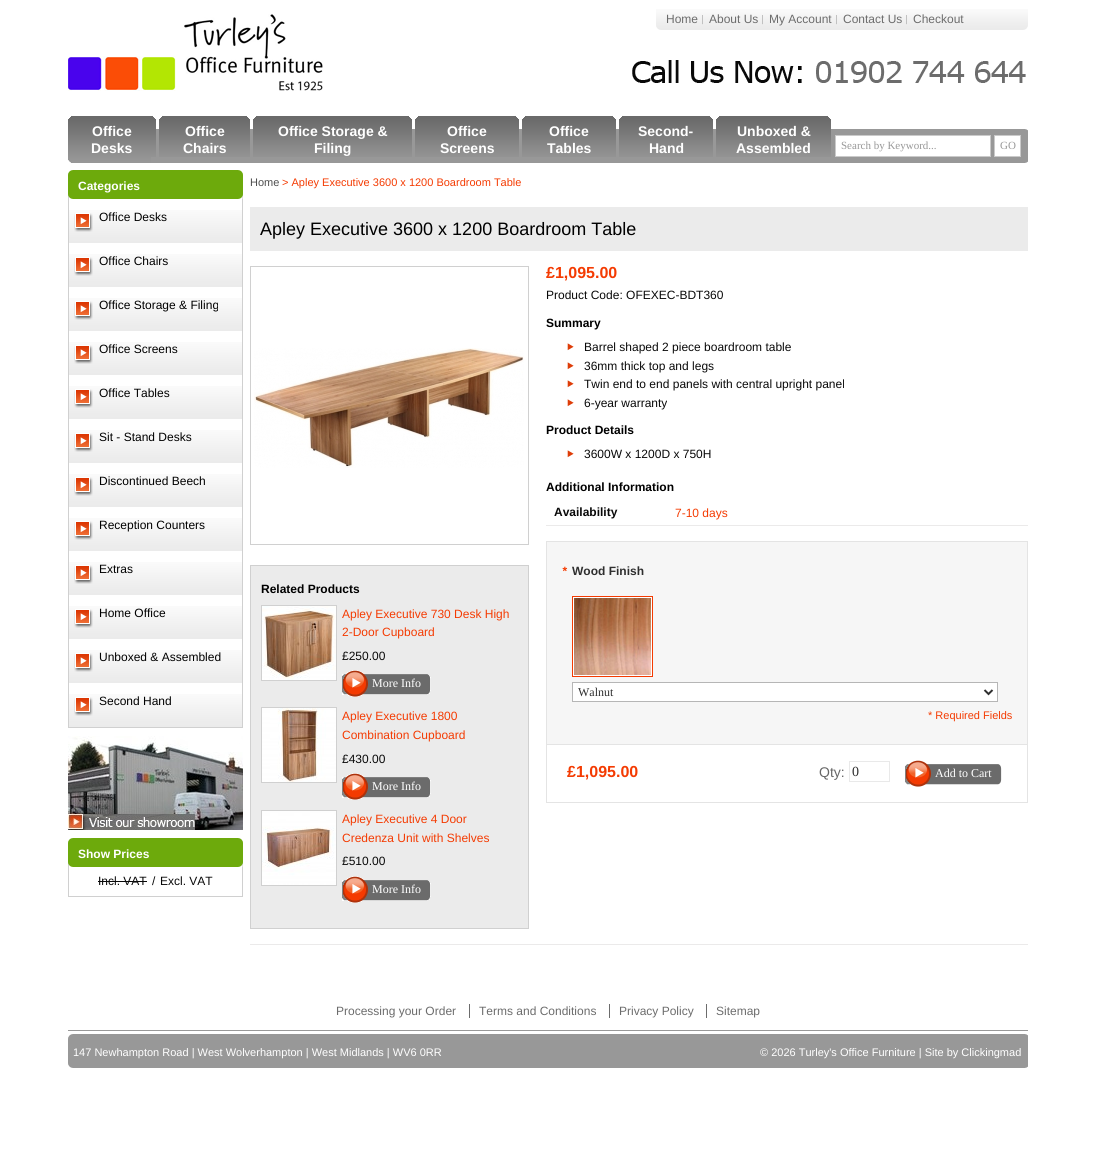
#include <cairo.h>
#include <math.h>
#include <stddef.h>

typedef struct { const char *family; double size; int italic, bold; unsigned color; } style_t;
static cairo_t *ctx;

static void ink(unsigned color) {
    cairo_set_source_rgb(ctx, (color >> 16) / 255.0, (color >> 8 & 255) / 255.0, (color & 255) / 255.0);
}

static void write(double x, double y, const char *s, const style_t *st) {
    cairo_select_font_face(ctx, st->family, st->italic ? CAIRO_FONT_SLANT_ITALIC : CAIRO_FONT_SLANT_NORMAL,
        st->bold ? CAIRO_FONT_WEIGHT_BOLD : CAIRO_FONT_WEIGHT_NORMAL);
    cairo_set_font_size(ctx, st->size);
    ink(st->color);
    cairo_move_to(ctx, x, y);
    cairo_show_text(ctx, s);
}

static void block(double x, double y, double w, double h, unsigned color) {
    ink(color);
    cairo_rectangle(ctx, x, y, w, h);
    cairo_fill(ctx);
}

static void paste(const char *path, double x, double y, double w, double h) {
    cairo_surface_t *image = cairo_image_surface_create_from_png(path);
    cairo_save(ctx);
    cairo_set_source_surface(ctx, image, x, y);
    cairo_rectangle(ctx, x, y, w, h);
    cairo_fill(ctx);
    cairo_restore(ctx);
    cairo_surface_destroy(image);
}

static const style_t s1 = {"Liberation Sans", 12, 0, 0, 0x6c6c6c};
static const style_t s2 = {"Liberation Sans", 14, 0, 1, 0xffffff};
static const style_t s3 = {"Liberation Serif", 11, 0, 0, 0x989898};
static const style_t s4 = {"Liberation Sans", 12, 0, 1, 0xffffff};
static const style_t s5 = {"Liberation Sans", 12, 0, 0, 0x000000};
static const style_t s6 = {"Liberation Sans", 12, 0, 0, 0x090909};
static const style_t s7 = {"Liberation Sans", 11, 0, 0, 0x4d4d4d};
static const style_t s8 = {"Liberation Sans", 11, 0, 0, 0xf43b02};
static const style_t s9 = {"Liberation Sans", 18, 0, 0, 0x000000};
static const style_t s10 = {"Liberation Sans", 12, 0, 1, 0x000000};
static const style_t s11 = {"Liberation Sans", 12, 0, 0, 0xf43b02};
static const style_t s12 = {"Liberation Serif", 12, 0, 0, 0xffffff};
static const style_t s13 = {"Liberation Sans", 16, 0, 1, 0xf43b02};
static const style_t s14 = {"Liberation Sans", 12, 0, 1, 0x090909};
static const style_t s15 = {"Liberation Sans", 12, 1, 1, 0xf43b02};
static const style_t s16 = {"Liberation Sans", 12, 0, 1, 0x2f2f2f};
static const style_t s17 = {"Liberation Serif", 12, 0, 0, 0x2f2f2f};
static const style_t s18 = {"Liberation Sans", 14, 0, 0, 0x666666};
static const style_t s19 = {"Liberation Serif", 14, 0, 0, 0x2f2f2f};
static const style_t s20 = {"Liberation Sans", 11, 0, 0, 0xffffff};

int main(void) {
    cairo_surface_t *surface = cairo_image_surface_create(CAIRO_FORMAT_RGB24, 1096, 1163);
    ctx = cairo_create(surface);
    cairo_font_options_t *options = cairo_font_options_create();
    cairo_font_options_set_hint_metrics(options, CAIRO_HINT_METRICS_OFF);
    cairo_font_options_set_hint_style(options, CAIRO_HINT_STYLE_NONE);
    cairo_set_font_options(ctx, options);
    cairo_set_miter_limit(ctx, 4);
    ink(0xffffff);
    cairo_paint(ctx);
    paste("pic1.png", 68, 14, 255, 77);
    paste("pic2.png", 656, 9, 372, 21);
    paste("pic3.png", 702, 15, 1, 10);
    write(666, 23, "Home", &s1);
    paste("pic3.png", 762, 15, 1, 10);
    write(709, 23, "About Us", &s1);
    paste("pic3.png", 836, 15, 1, 10);
    write(769, 23, "My Account", &s1);
    paste("pic3.png", 906, 15, 1, 10);
    write(843, 23, "Contact Us", &s1);
    write(913, 23, "Checkout", &s1);
    paste("pic4.png", 632, 60, 394, 23);
    paste("pic5.png", 68, 129, 960, 34);
    paste("pic6.png", 151, 116, 5, 41);
    paste("pic7.png", 68, 116, 83, 47);
    write(92, 136, "Office", &s2);
    write(91, 153, "Desks", &s2);
    paste("pic6.png", 245, 116, 5, 41);
    paste("pic8.png", 159, 116, 86, 41);
    write(185, 136, "Office", &s2);
    write(183, 153, "Chairs", &s2);
    paste("pic6.png", 407, 116, 5, 41);
    paste("pic9.png", 253, 116, 154, 41);
    write(278, 136, "Office Storage &", &s2);
    write(314, 153, "Filing", &s2);
    paste("pic6.png", 514, 116, 5, 41);
    paste("pic10.png", 415, 116, 99, 41);
    write(447, 136, "Office", &s2);
    write(440, 153, "Screens", &s2);
    paste("pic6.png", 611, 116, 5, 41);
    paste("pic11.png", 522, 116, 89, 41);
    write(549, 136, "Office", &s2);
    write(547, 153, "Tables", &s2);
    paste("pic6.png", 708, 116, 5, 41);
    paste("pic11.png", 619, 116, 89, 41);
    write(638, 136, "Second-", &s2);
    write(649, 153, "Hand", &s2);
    paste("pic6.png", 826, 116, 5, 41);
    paste("pic12.png", 716, 116, 110, 41);
    write(737, 136, "Unboxed &", &s2);
    write(736, 153, "Assembled", &s2);
    cairo_rectangle(ctx, 835.5, 135.5, 155, 21);
    cairo_fill_preserve(ctx);
    ink(0xcacaca);
    cairo_set_line_width(ctx, 1);
    cairo_stroke(ctx);
    write(841, 149, "Search by Keyword...", &s3);
    ink(0xffffff);
    cairo_rectangle(ctx, 994.5, 135.5, 26, 21);
    cairo_fill_preserve(ctx);
    ink(0xcacaca);
    cairo_stroke(ctx);
    write(1000, 149, "GO", &s3);
    paste("pic13.png", 68, 170, 175, 29);
    write(78, 190, "Categories", &s4);
    block(242, 199, 1, 529, 0xd0d0d0);
    block(68, 727, 175, 1, 0xd0d0d0);
    block(68, 199, 1, 529, 0xd0d0d0);
    paste("pic14.png", 69, 210, 173, 33);
    write(99, 221, "Office Desks", &s5);
    paste("pic14.png", 69, 254, 173, 33);
    write(99, 265, "Office Chairs", &s5);
    paste("pic14.png", 69, 298, 173, 33);
    write(99, 309, "Office Storage & Filing", &s5);
    paste("pic14.png", 69, 342, 173, 33);
    write(99, 353, "Office Screens", &s5);
    paste("pic14.png", 69, 386, 173, 33);
    write(99, 397, "Office Tables", &s5);
    paste("pic14.png", 69, 430, 173, 33);
    write(99, 441, "Sit - Stand Desks", &s5);
    paste("pic14.png", 69, 474, 173, 33);
    write(99, 485, "Discontinued Beech", &s5);
    paste("pic14.png", 69, 518, 173, 33);
    write(99, 529, "Reception Counters", &s5);
    paste("pic14.png", 69, 562, 173, 33);
    write(99, 573, "Extras", &s5);
    paste("pic14.png", 69, 606, 173, 33);
    write(99, 617, "Home Office", &s5);
    paste("pic14.png", 69, 650, 173, 33);
    write(99, 661, "Unboxed & Assembled", &s5);
    paste("pic14.png", 69, 694, 173, 33);
    write(99, 705, "Second Hand", &s5);
    paste("pic15.png", 68, 736, 175, 94);
    paste("pic13.png", 68, 838, 175, 29);
    write(78, 858, "Show Prices", &s4);
    block(242, 867, 1, 30, 0xd0d0d0);
    block(68, 896, 175, 1, 0xd0d0d0);
    block(68, 867, 1, 30, 0xd0d0d0);
    write(98, 885, "Incl. VAT", &s6);
    block(98, 881, 49, 1, 0x090909);
    write(152, 885, "/", &s6);
    write(160, 885, "Excl. VAT", &s6);
    write(250, 186, "Home", &s7);
    write(282, 186, "> Apley Executive 3600 x 1200 Boardroom Table", &s8);
    block(250, 207, 778, 44, 0xebebeb);
    write(260, 235, "Apley Executive 3600 x 1200 Boardroom Table", &s9);
    cairo_rectangle(ctx, 250.5, 266.5, 278, 278);
    ink(0xd0d0d0);
    cairo_stroke(ctx);
    paste("pic16.png", 254, 348, 270, 120);
    ink(0xebebeb);
    cairo_rectangle(ctx, 250.5, 565.5, 278, 363);
    cairo_fill_preserve(ctx);
    ink(0xd0d0d0);
    cairo_stroke(ctx);
    write(261, 593, "Related Products", &s10);
    cairo_rectangle(ctx, 261.5, 605.5, 75, 75);
    ink(0xd0d0d0);
    cairo_stroke(ctx);
    paste("pic17.png", 262, 606, 74, 74);
    write(342, 618, "Apley Executive 730 Desk High", &s11);
    write(342, 636, "2-Door Cupboard", &s11);
    write(342, 660, "£250.00", &s6);
    paste("pic18.png", 363, 674, 68, 21);
    paste("pic19.png", 342, 670, 26, 27);
    write(372, 687, "More Info", &s12);
    cairo_rectangle(ctx, 261.5, 707.5, 75, 75);
    ink(0xd0d0d0);
    cairo_stroke(ctx);
    paste("pic20.png", 262, 708, 74, 74);
    write(342, 720, "Apley Executive 1800", &s11);
    write(342, 739, "Combination Cupboard", &s11);
    write(342, 763, "£430.00", &s6);
    paste("pic18.png", 363, 777, 68, 21);
    paste("pic19.png", 342, 773, 26, 27);
    write(372, 790, "More Info", &s12);
    cairo_rectangle(ctx, 261.5, 810.5, 75, 75);
    ink(0xd0d0d0);
    cairo_stroke(ctx);
    paste("pic21.png", 262, 811, 74, 74);
    write(342, 823, "Apley Executive 4 Door", &s11);
    write(342, 842, "Credenza Unit with Shelves", &s11);
    write(342, 865, "£510.00", &s6);
    paste("pic18.png", 363, 880, 68, 21);
    paste("pic19.png", 342, 876, 26, 27);
    write(372, 893, "More Info", &s12);
    write(546, 278, "£1,095.00", &s13);
    write(546, 299, "Product Code: OFEXEC-BDT360", &s6);
    write(546, 327, "Summary", &s10);
    paste("pic22.png", 567, 343, 7, 8);
    write(584, 351, "Barrel shaped 2 piece boardroom table", &s6);
    paste("pic22.png", 567, 362, 7, 8);
    write(584, 370, "36mm thick top and legs", &s6);
    paste("pic22.png", 567, 380, 7, 8);
    write(584, 388, "Twin end to end panels with central upright panel", &s6);
    paste("pic22.png", 567, 399, 7, 8);
    write(584, 407, "6-year warranty", &s6);
    write(546, 434, "Product Details", &s10);
    paste("pic22.png", 567, 450, 7, 8);
    write(584, 458, "3600W x 1200D x 750H", &s6);
    write(546, 491, "Additional Information", &s10);
    block(546, 525, 482, 1, 0xebeaea);
    write(554, 516, "Availability", &s14);
    write(675, 517, "7-10 days", &s11);
    ink(0xf6f6f6);
    cairo_rectangle(ctx, 546.5, 541.5, 481, 203);
    cairo_fill_preserve(ctx);
    ink(0xe4e4e4);
    cairo_stroke(ctx);
    write(562, 575, "*", &s15);
    write(572, 575, "Wood Finish", &s16);
    cairo_rectangle(ctx, 572.5, 596.5, 80, 80);
    ink(0xf43b02);
    cairo_stroke(ctx);
    cairo_rectangle(ctx, 573.5, 597.5, 78, 78);
    ink(0xffffff);
    cairo_stroke(ctx);
    paste("pic23.png", 574, 598, 77, 77);
    cairo_rectangle(ctx, 572.5, 682.5, 425, 19);
    cairo_fill_preserve(ctx);
    ink(0xb6b6b6);
    cairo_stroke(ctx);
    cairo_new_path(ctx);
    cairo_move_to(ctx, 984.5, 690);
    cairo_line_to(ctx, 988.5, 694);
    cairo_line_to(ctx, 992.5, 690);
    ink(0x2f2f2f);
    cairo_set_line_width(ctx, 2);
    cairo_stroke(ctx);
    write(578, 696, "Walnut", &s17);
    write(928, 719, "* Required Fields", &s8);
    block(1027, 745, 1, 58, 0xe4e4e4);
    block(546, 802, 482, 1, 0xe4e4e4);
    block(546, 745, 1, 58, 0xe4e4e4);
    write(567, 777, "£1,095.00", &s13);
    write(819, 777, "Qty:", &s18);
    cairo_rectangle(ctx, 849.5, 761.5, 40, 20);
    ink(0xe9e9e9);
    cairo_set_line_width(ctx, 1);
    cairo_stroke(ctx);
    write(852, 776, "0", &s19);
    paste("pic24.png", 926, 764, 76, 21);
    paste("pic25.png", 905, 760, 26, 27);
    write(935, 777, "Add to Cart", &s12);
    block(250, 944, 778, 1, 0xebeaea);
    write(336, 1015, "Processing your Order", &s1);
    write(479, 1015, "Terms and Conditions", &s1);
    block(469, 1004, 1, 14, 0x6c6c6c);
    write(619, 1015, "Privacy Policy", &s1);
    block(609, 1004, 1, 14, 0x6c6c6c);
    write(716, 1015, "Sitemap", &s1);
    block(706, 1004, 1, 14, 0x6c6c6c);
    paste("pic5.png", 68, 1034, 960, 34);
    block(68, 1030, 960, 1, 0x989898);
    write(73, 1056, "147 Newhampton Road | West Wolverhampton | West Midlands | WV6 0RR", &s20);
    write(760, 1056, "© 2026 Turley's Office Furniture | Site by Clickingmad", &s20);
    cairo_surface_write_to_png(surface, "screenshot.png");
    cairo_font_options_destroy(options);
    cairo_destroy(ctx);
    cairo_surface_destroy(surface);
    return 0;
}
